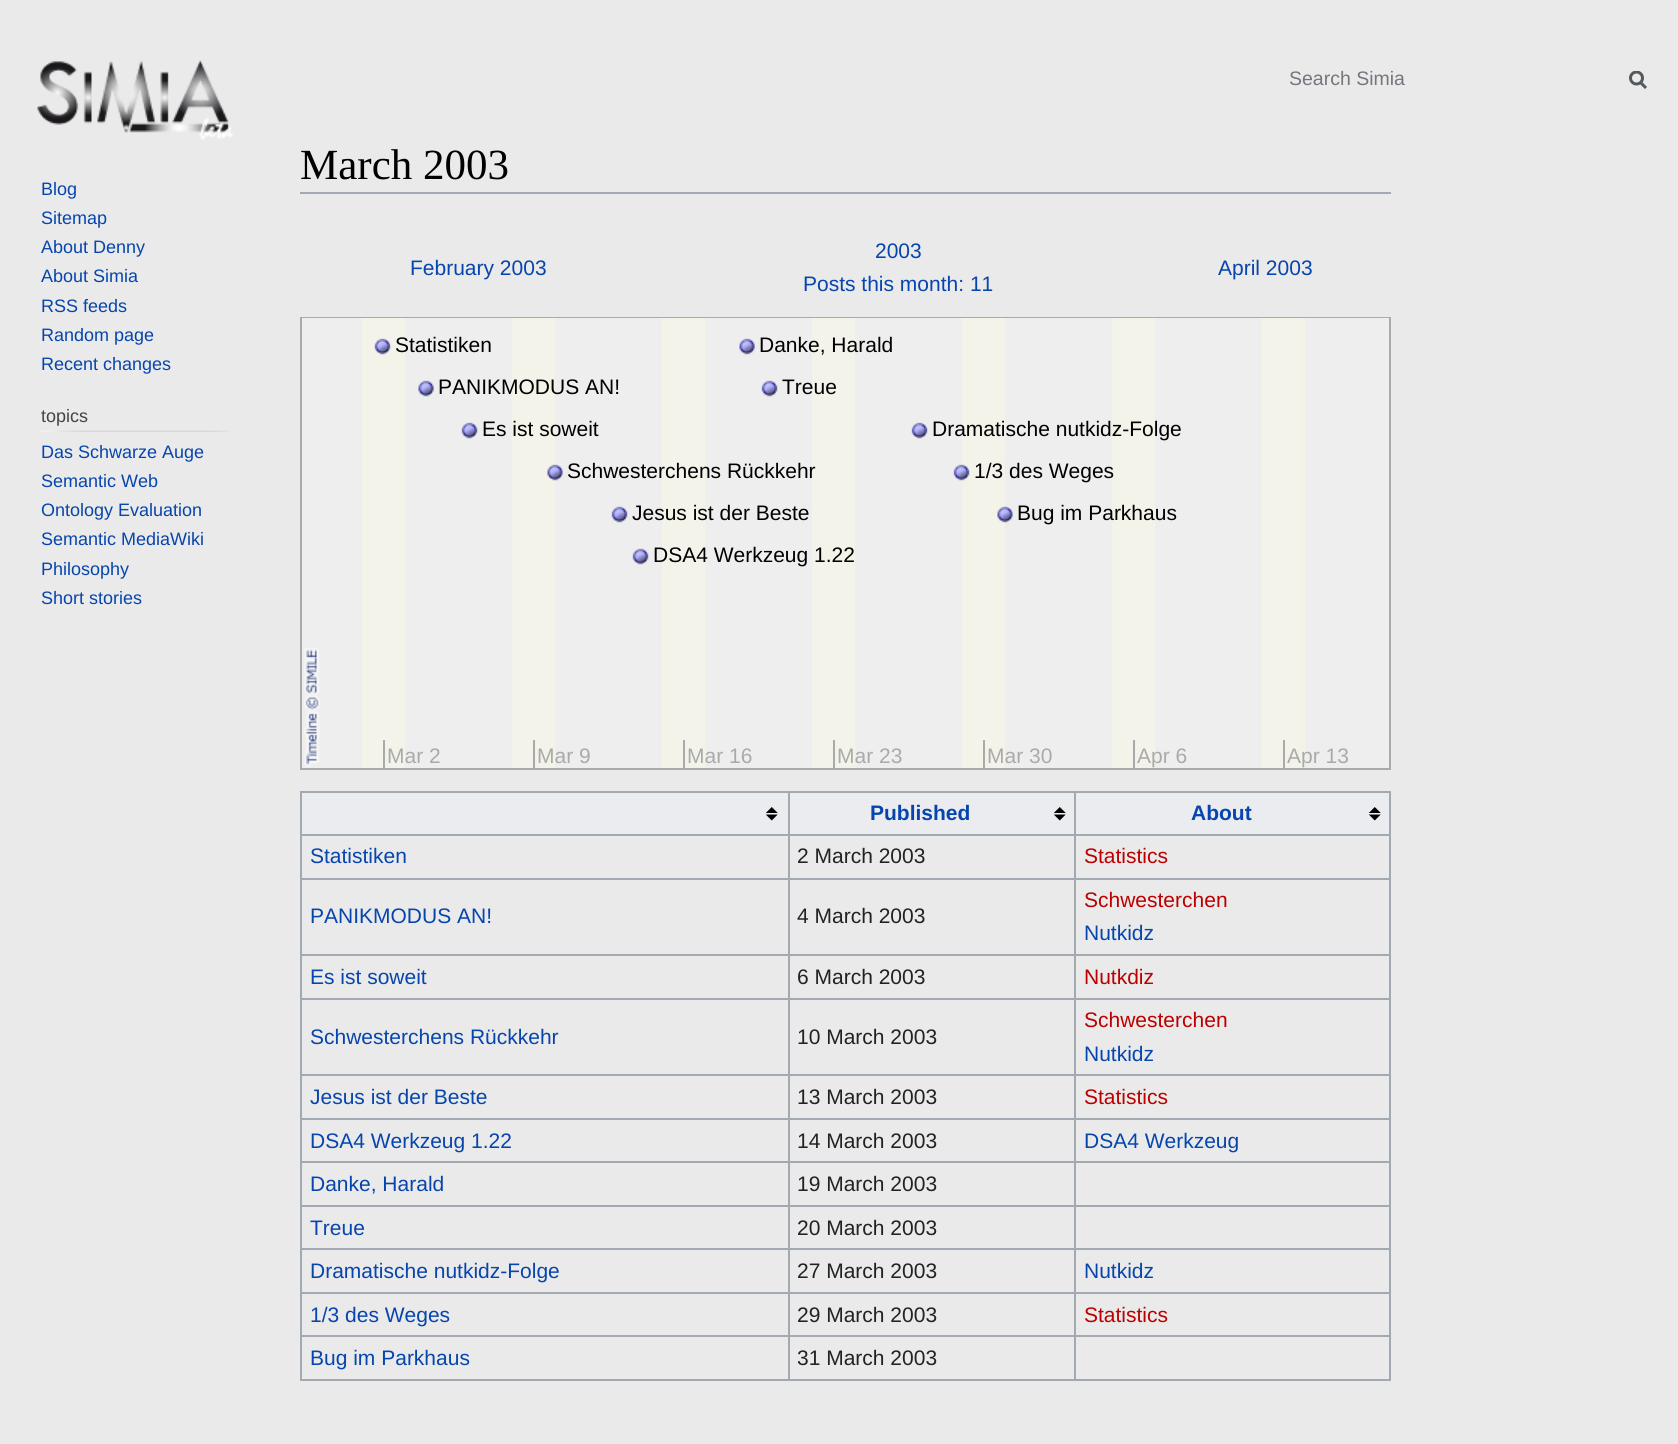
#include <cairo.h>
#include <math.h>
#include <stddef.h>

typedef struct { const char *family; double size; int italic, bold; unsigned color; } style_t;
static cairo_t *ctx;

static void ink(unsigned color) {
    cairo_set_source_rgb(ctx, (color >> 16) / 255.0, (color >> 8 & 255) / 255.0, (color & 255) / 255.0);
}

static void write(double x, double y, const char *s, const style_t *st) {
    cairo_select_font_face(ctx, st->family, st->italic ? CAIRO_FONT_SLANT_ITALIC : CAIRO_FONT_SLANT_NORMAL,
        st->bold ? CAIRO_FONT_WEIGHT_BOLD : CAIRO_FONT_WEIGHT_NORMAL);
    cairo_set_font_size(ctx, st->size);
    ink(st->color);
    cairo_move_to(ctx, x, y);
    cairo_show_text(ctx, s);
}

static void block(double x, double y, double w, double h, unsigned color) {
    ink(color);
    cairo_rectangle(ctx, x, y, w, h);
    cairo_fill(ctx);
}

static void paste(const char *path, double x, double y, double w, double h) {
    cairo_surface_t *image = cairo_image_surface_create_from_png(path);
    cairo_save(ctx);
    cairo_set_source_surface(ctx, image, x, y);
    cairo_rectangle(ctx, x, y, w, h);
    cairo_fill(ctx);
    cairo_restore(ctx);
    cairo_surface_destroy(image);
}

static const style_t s1 = {"Liberation Sans", 19.5, 0, 0, 0x72777d};
static const style_t s2 = {"Liberation Sans", 18, 0, 0, 0x0645ad};
static const style_t s3 = {"Liberation Sans", 18, 0, 0, 0x444444};
static const style_t s4 = {"Liberation Serif", 43, 0, 0, 0x000000};
static const style_t s5 = {"Liberation Sans", 21, 0, 0, 0x0645ad};
static const style_t s6 = {"Liberation Sans", 21, 0, 0, 0x000000};
static const style_t s7 = {"Liberation Sans", 21, 0, 0, 0xaaaaaa};
static const style_t s8 = {"Liberation Sans", 21, 0, 1, 0x0645ad};
static const style_t s9 = {"Liberation Sans", 21, 0, 0, 0x222222};
static const style_t s10 = {"Liberation Sans", 21, 0, 0, 0xba0000};

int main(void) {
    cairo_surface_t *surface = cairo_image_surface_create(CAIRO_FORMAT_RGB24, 1678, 1444);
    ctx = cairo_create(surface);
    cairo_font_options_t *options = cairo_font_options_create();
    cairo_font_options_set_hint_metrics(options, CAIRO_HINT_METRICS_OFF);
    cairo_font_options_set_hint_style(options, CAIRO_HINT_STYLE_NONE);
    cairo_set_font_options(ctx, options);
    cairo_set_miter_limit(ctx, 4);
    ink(0xeaeaea);
    cairo_paint(ctx);
    write(1289, 85, "Search Simia", &s1);
    cairo_new_path(ctx);
    cairo_move_to(ctx, 1646, 88);
    cairo_line_to(ctx, 1640, 82);
    ink(0x54595d);
    cairo_set_line_width(ctx, 3);
    cairo_stroke(ctx);
    cairo_save(ctx);
    cairo_rectangle(ctx, 1629, 71, 18, 19);
    cairo_clip(ctx);
    cairo_arc(ctx, 1636.5, 78, 6, 0, 2 * M_PI);
    cairo_stroke(ctx);
    cairo_restore(ctx);
    paste("pic1.png", 37, 60, 197, 80);
    write(41, 195, "Blog", &s2);
    write(41, 224, "Sitemap", &s2);
    write(41, 253, "About Denny", &s2);
    write(41, 282, "About Simia", &s2);
    write(41, 312, "RSS feeds", &s2);
    write(41, 341, "Random page", &s2);
    write(41, 370, "Recent changes", &s2);
    write(41, 422, "topics", &s3);
    paste("pic2.png", 40, 430, 191, 2);
    write(41, 458, "Das Schwarze Auge", &s2);
    write(41, 487, "Semantic Web", &s2);
    write(41, 516, "Ontology Evaluation", &s2);
    write(41, 545, "Semantic MediaWiki", &s2);
    write(41, 575, "Philosophy", &s2);
    write(41, 604, "Short stories", &s2);
    block(300, 192, 1091, 2, 0xa2a9b1);
    write(300, 179, "March 2003", &s4);
    write(410, 275, "February 2003", &s5);
    write(875, 258, "2003", &s5);
    write(803, 291, "Posts this month: 11", &s5);
    write(1218, 275, "April 2003", &s5);
    cairo_rectangle(ctx, 301, 318, 1089, 451);
    ink(0xaaaaaa);
    cairo_set_line_width(ctx, 2);
    cairo_stroke(ctx);
    block(302, 318, 1087, 450, 0xeeeeee);
    paste("pic3.png", 304, 648, 16, 119);
    block(362, 318, 43, 450, 0xf3f3ea);
    block(512, 318, 43, 450, 0xf3f3ea);
    block(662, 318, 43, 450, 0xf3f3ea);
    block(812, 318, 43, 450, 0xf3f3ea);
    block(962, 318, 43, 450, 0xf3f3ea);
    block(1112, 318, 43, 450, 0xf3f3ea);
    block(1262, 318, 43, 450, 0xf3f3ea);
    paste("pic4.png", 374, 338, 17, 17);
    write(395, 352, "Statistiken", &s6);
    paste("pic5.png", 739, 338, 16, 17);
    write(759, 352, "Danke, Harald", &s6);
    paste("pic5.png", 418, 380, 16, 17);
    write(438, 394, "PANIKMODUS AN!", &s6);
    paste("pic6.png", 761, 380, 17, 17);
    write(782, 394, "Treue", &s6);
    paste("pic7.png", 461, 422, 17, 17);
    write(482, 436, "Es ist soweit", &s6);
    paste("pic7.png", 911, 422, 17, 17);
    write(932, 436, "Dramatische nutkidz-Folge", &s6);
    paste("pic8.png", 547, 464, 16, 17);
    write(567, 478, "Schwesterchens Rückkehr", &s6);
    paste("pic9.png", 953, 464, 17, 17);
    write(974, 478, "1/3 des Weges", &s6);
    paste("pic10.png", 611, 506, 17, 17);
    write(632, 520, "Jesus ist der Beste", &s6);
    paste("pic8.png", 997, 506, 16, 17);
    write(1017, 520, "Bug im Parkhaus", &s6);
    paste("pic10.png", 632, 548, 17, 17);
    write(653, 562, "DSA4 Werkzeug 1.22", &s6);
    block(383, 740, 2, 28, 0xaaaaaa);
    write(387, 763, "Mar 2", &s7);
    block(533, 740, 2, 28, 0xaaaaaa);
    write(537, 763, "Mar 9", &s7);
    block(683, 740, 2, 28, 0xaaaaaa);
    write(687, 763, "Mar 16", &s7);
    block(833, 740, 2, 28, 0xaaaaaa);
    write(837, 763, "Mar 23", &s7);
    block(983, 740, 2, 28, 0xaaaaaa);
    write(987, 763, "Mar 30", &s7);
    block(1133, 740, 2, 28, 0xaaaaaa);
    write(1137, 763, "Apr 6", &s7);
    block(1283, 740, 2, 28, 0xaaaaaa);
    write(1287, 763, "Apr 13", &s7);
    block(300, 791, 1091, 2, 0xa2a9b1);
    block(1389, 791, 2, 589, 0xa2a9b1);
    block(300, 1379, 1091, 2, 0xa2a9b1);
    block(300, 791, 2, 589, 0xa2a9b1);
    block(302, 793, 486, 41, 0xeaecf0);
    paste("pic11.png", 765, 807, 13, 14);
    block(790, 793, 284, 41, 0xeaecf0);
    paste("pic11.png", 1053, 807, 13, 14);
    block(1074, 834, 317, 2, 0xa2a9b1);
    block(1074, 878, 317, 2, 0xa2a9b1);
    block(1074, 954, 317, 2, 0xa2a9b1);
    block(1074, 998, 317, 2, 0xa2a9b1);
    block(1074, 1074, 317, 2, 0xa2a9b1);
    block(1074, 1118, 317, 2, 0xa2a9b1);
    block(1074, 1161, 317, 2, 0xa2a9b1);
    block(1074, 1205, 317, 2, 0xa2a9b1);
    block(1074, 1248, 317, 2, 0xa2a9b1);
    block(1074, 1292, 317, 2, 0xa2a9b1);
    block(1074, 1335, 317, 2, 0xa2a9b1);
    block(1074, 1335, 2, 45, 0xa2a9b1);
    block(788, 1335, 288, 2, 0xa2a9b1);
    block(1074, 1292, 2, 45, 0xa2a9b1);
    block(788, 1292, 288, 2, 0xa2a9b1);
    block(1074, 1248, 2, 45, 0xa2a9b1);
    block(788, 1248, 288, 2, 0xa2a9b1);
    block(1074, 1205, 2, 45, 0xa2a9b1);
    block(788, 1205, 288, 2, 0xa2a9b1);
    block(1074, 1161, 2, 45, 0xa2a9b1);
    block(788, 1161, 288, 2, 0xa2a9b1);
    block(1074, 1118, 2, 45, 0xa2a9b1);
    block(788, 1118, 288, 2, 0xa2a9b1);
    block(1074, 1074, 2, 45, 0xa2a9b1);
    block(788, 1074, 288, 2, 0xa2a9b1);
    block(1074, 998, 2, 78, 0xa2a9b1);
    block(788, 998, 288, 2, 0xa2a9b1);
    block(1074, 954, 2, 45, 0xa2a9b1);
    block(788, 954, 288, 2, 0xa2a9b1);
    block(1074, 878, 2, 78, 0xa2a9b1);
    block(788, 878, 288, 2, 0xa2a9b1);
    block(1074, 834, 2, 45, 0xa2a9b1);
    block(788, 834, 288, 2, 0xa2a9b1);
    block(788, 1335, 2, 45, 0xa2a9b1);
    block(300, 1335, 489, 2, 0xa2a9b1);
    block(788, 1292, 2, 45, 0xa2a9b1);
    block(300, 1292, 489, 2, 0xa2a9b1);
    block(788, 1248, 2, 45, 0xa2a9b1);
    block(300, 1248, 489, 2, 0xa2a9b1);
    block(788, 1205, 2, 45, 0xa2a9b1);
    block(300, 1205, 489, 2, 0xa2a9b1);
    block(788, 1161, 2, 45, 0xa2a9b1);
    block(300, 1161, 489, 2, 0xa2a9b1);
    block(788, 1118, 2, 45, 0xa2a9b1);
    block(300, 1118, 489, 2, 0xa2a9b1);
    block(788, 1074, 2, 45, 0xa2a9b1);
    block(300, 1074, 489, 2, 0xa2a9b1);
    block(788, 998, 2, 78, 0xa2a9b1);
    block(300, 998, 489, 2, 0xa2a9b1);
    block(788, 954, 2, 45, 0xa2a9b1);
    block(300, 954, 489, 2, 0xa2a9b1);
    block(788, 878, 2, 78, 0xa2a9b1);
    block(300, 878, 489, 2, 0xa2a9b1);
    block(788, 834, 2, 45, 0xa2a9b1);
    block(300, 834, 489, 2, 0xa2a9b1);
    block(788, 791, 2, 45, 0xa2a9b1);
    write(870, 820, "Published", &s8);
    block(1076, 793, 313, 41, 0xeaecf0);
    paste("pic11.png", 1368, 807, 13, 14);
    block(1074, 791, 2, 45, 0xa2a9b1);
    write(1191, 820, "About", &s8);
    write(310, 863, "Statistiken", &s5);
    write(797, 863, "2 March 2003", &s9);
    write(1084, 863, "Statistics", &s10);
    write(310, 923, "PANIKMODUS AN!", &s5);
    write(797, 923, "4 March 2003", &s9);
    write(1084, 907, "Schwesterchen", &s10);
    write(1084, 940, "Nutkidz", &s5);
    write(310, 984, "Es ist soweit", &s5);
    write(797, 984, "6 March 2003", &s9);
    write(1084, 984, "Nutkdiz", &s10);
    write(310, 1044, "Schwesterchens Rückkehr", &s5);
    write(797, 1044, "10 March 2003", &s9);
    write(1084, 1027, "Schwesterchen", &s10);
    write(1084, 1061, "Nutkidz", &s5);
    write(310, 1104, "Jesus ist der Beste", &s5);
    write(797, 1104, "13 March 2003", &s9);
    write(1084, 1104, "Statistics", &s10);
    write(310, 1148, "DSA4 Werkzeug 1.22", &s5);
    write(797, 1148, "14 March 2003", &s9);
    write(1084, 1148, "DSA4 Werkzeug", &s5);
    write(310, 1191, "Danke, Harald", &s5);
    write(797, 1191, "19 March 2003", &s9);
    write(310, 1235, "Treue", &s5);
    write(797, 1235, "20 March 2003", &s9);
    write(310, 1278, "Dramatische nutkidz-Folge", &s5);
    write(797, 1278, "27 March 2003", &s9);
    write(1084, 1278, "Nutkidz", &s5);
    write(310, 1322, "1/3 des Weges", &s5);
    write(797, 1322, "29 March 2003", &s9);
    write(1084, 1322, "Statistics", &s10);
    write(310, 1365, "Bug im Parkhaus", &s5);
    write(797, 1365, "31 March 2003", &s9);
    cairo_surface_write_to_png(surface, "screenshot.png");
    cairo_font_options_destroy(options);
    cairo_destroy(ctx);
    cairo_surface_destroy(surface);
    return 0;
}
